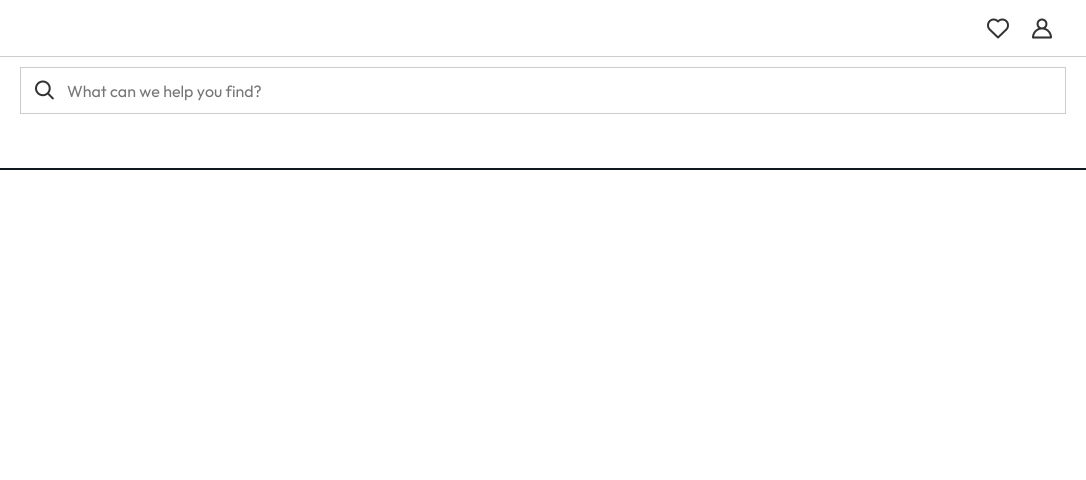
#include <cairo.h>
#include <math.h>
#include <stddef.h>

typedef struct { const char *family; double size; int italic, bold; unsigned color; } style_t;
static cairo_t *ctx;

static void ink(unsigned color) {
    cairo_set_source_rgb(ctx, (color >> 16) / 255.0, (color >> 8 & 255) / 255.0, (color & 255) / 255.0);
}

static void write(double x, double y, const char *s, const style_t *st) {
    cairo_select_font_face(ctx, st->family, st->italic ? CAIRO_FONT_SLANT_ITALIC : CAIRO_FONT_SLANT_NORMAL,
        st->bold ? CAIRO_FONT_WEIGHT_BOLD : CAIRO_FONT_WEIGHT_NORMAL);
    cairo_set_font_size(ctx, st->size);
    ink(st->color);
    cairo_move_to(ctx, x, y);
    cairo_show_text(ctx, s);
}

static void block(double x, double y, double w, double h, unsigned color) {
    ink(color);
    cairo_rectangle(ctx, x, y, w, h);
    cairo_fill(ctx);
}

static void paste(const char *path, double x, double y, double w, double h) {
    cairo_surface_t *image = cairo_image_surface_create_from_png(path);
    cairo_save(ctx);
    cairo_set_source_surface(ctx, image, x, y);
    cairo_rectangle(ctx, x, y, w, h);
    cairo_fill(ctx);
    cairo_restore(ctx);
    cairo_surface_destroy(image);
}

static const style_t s1 = {"Outfit", 16, 0, 0, 0x757575};

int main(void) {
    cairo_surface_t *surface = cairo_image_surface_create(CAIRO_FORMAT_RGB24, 1086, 480);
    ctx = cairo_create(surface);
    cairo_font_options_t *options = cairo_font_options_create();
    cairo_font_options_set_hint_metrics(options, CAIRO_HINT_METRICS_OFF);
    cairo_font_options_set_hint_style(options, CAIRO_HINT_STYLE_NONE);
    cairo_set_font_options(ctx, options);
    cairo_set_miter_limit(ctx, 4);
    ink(0xffffff);
    cairo_paint(ctx);
    block(0, 56, 1086, 1, 0xcccccc);
    paste("pic1.png", 987, 18, 22, 21);
    paste("pic2.png", 1032, 18, 20, 21);
    cairo_rectangle(ctx, 20.5, 67.5, 1045, 46);
    cairo_set_line_width(ctx, 1);
    cairo_stroke(ctx);
    paste("pic3.png", 35, 80, 19, 20);
    write(67, 97, "What can we help you find?", &s1);
    block(0, 168, 1086, 2, 0x101820);
    cairo_surface_write_to_png(surface, "screenshot.png");
    cairo_font_options_destroy(options);
    cairo_destroy(ctx);
    cairo_surface_destroy(surface);
    return 0;
}
